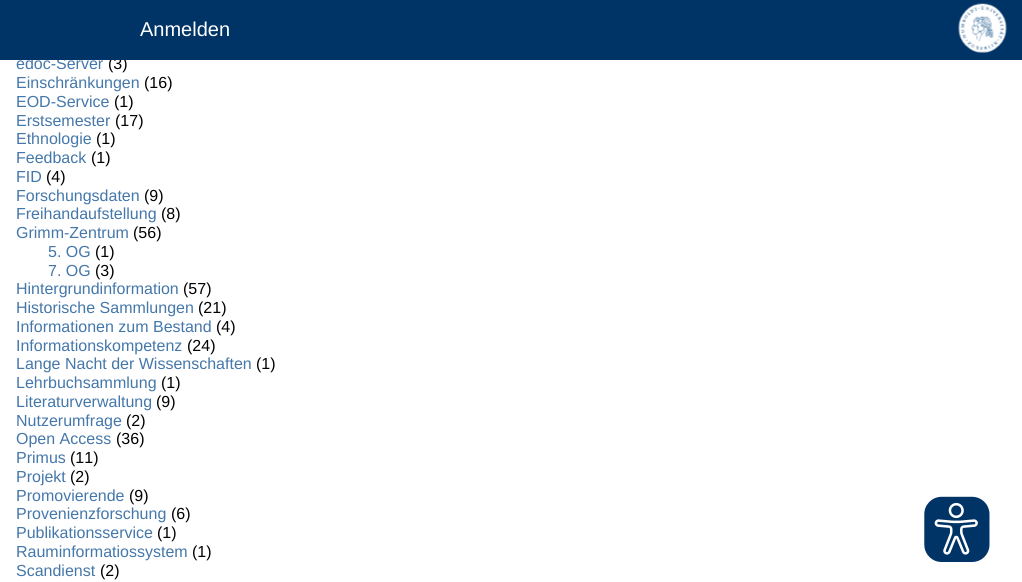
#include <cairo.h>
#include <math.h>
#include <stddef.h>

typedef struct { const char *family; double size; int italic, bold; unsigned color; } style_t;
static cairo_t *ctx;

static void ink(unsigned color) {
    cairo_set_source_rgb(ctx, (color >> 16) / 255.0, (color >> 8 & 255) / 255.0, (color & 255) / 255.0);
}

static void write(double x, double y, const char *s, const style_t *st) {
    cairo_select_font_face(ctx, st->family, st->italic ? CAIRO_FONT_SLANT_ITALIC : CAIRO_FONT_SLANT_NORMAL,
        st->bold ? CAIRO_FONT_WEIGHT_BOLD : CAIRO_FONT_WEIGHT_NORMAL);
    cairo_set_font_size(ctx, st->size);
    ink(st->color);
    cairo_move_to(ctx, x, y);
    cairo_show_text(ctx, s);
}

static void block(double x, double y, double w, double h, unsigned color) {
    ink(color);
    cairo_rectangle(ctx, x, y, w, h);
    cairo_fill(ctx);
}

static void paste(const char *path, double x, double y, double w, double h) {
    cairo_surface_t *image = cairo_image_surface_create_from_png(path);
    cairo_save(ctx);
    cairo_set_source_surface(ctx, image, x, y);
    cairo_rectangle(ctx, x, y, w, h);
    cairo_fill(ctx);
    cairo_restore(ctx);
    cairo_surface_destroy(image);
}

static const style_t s1 = {"Liberation Sans", 16, 0, 0, 0x4477aa};
static const style_t s2 = {"Liberation Sans", 16, 0, 0, 0x000000};
static const style_t s3 = {"Liberation Sans", 20, 0, 0, 0xffffff};

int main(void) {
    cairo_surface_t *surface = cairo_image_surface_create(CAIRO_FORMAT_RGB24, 1022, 582);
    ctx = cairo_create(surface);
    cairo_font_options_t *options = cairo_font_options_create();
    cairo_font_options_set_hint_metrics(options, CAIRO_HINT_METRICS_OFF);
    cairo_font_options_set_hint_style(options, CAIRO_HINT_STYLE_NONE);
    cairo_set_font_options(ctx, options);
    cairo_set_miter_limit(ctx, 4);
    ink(0xffffff);
    cairo_paint(ctx);
    write(16, 69, "edoc-Server", &s1);
    write(108, 69, "(3)", &s2);
    block(0, 0, 1022, 60, 0x003366);
    write(140, 36, "Anmelden", &s3);
    paste("pic1.png", 958, 3, 49, 50);
    write(16, 88, "Einschränkungen", &s1);
    write(144, 88, "(16)", &s2);
    write(16, 107, "EOD-Service", &s1);
    write(114, 107, "(1)", &s2);
    write(16, 126, "Erstsemester", &s1);
    write(115, 126, "(17)", &s2);
    write(16, 144, "Ethnologie", &s1);
    write(96, 144, "(1)", &s2);
    write(16, 163, "Feedback", &s1);
    write(91, 163, "(1)", &s2);
    write(16, 182, "FID", &s1);
    write(46, 182, "(4)", &s2);
    write(16, 201, "Forschungsdaten", &s1);
    write(144, 201, "(9)", &s2);
    write(16, 219, "Freihandaufstellung", &s1);
    write(161, 219, "(8)", &s2);
    write(16, 238, "Grimm-Zentrum", &s1);
    write(133, 238, "(56)", &s2);
    write(48, 257, "5. OG", &s1);
    write(95, 257, "(1)", &s2);
    write(48, 276, "7. OG", &s1);
    write(95, 276, "(3)", &s2);
    write(16, 294, "Hintergrundinformation", &s1);
    write(183, 294, "(57)", &s2);
    write(16, 313, "Historische Sammlungen", &s1);
    write(198, 313, "(21)", &s2);
    write(16, 332, "Informationen zum Bestand", &s1);
    write(216, 332, "(4)", &s2);
    write(16, 351, "Informationskompetenz", &s1);
    write(187, 351, "(24)", &s2);
    write(16, 369, "Lange Nacht der Wissenschaften", &s1);
    write(256, 369, "(1)", &s2);
    write(16, 388, "Lehrbuchsammlung", &s1);
    write(161, 388, "(1)", &s2);
    write(16, 407, "Literaturverwaltung", &s1);
    write(156, 407, "(9)", &s2);
    write(16, 426, "Nutzerumfrage", &s1);
    write(126, 426, "(2)", &s2);
    write(16, 444, "Open Access", &s1);
    write(116, 444, "(36)", &s2);
    write(16, 463, "Primus", &s1);
    write(70, 463, "(11)", &s2);
    write(16, 482, "Projekt", &s1);
    write(70, 482, "(2)", &s2);
    write(16, 501, "Promovierende", &s1);
    write(129, 501, "(9)", &s2);
    write(16, 519, "Provenienzforschung", &s1);
    write(171, 519, "(6)", &s2);
    write(16, 538, "Publikationsservice", &s1);
    write(157, 538, "(1)", &s2);
    write(16, 557, "Rauminformatiossystem", &s1);
    write(192, 557, "(1)", &s2);
    write(16, 576, "Scandienst", &s1);
    write(100, 576, "(2)", &s2);
    paste("pic2.png", 924, 496, 66, 66);
    cairo_surface_write_to_png(surface, "screenshot.png");
    cairo_font_options_destroy(options);
    cairo_destroy(ctx);
    cairo_surface_destroy(surface);
    return 0;
}
